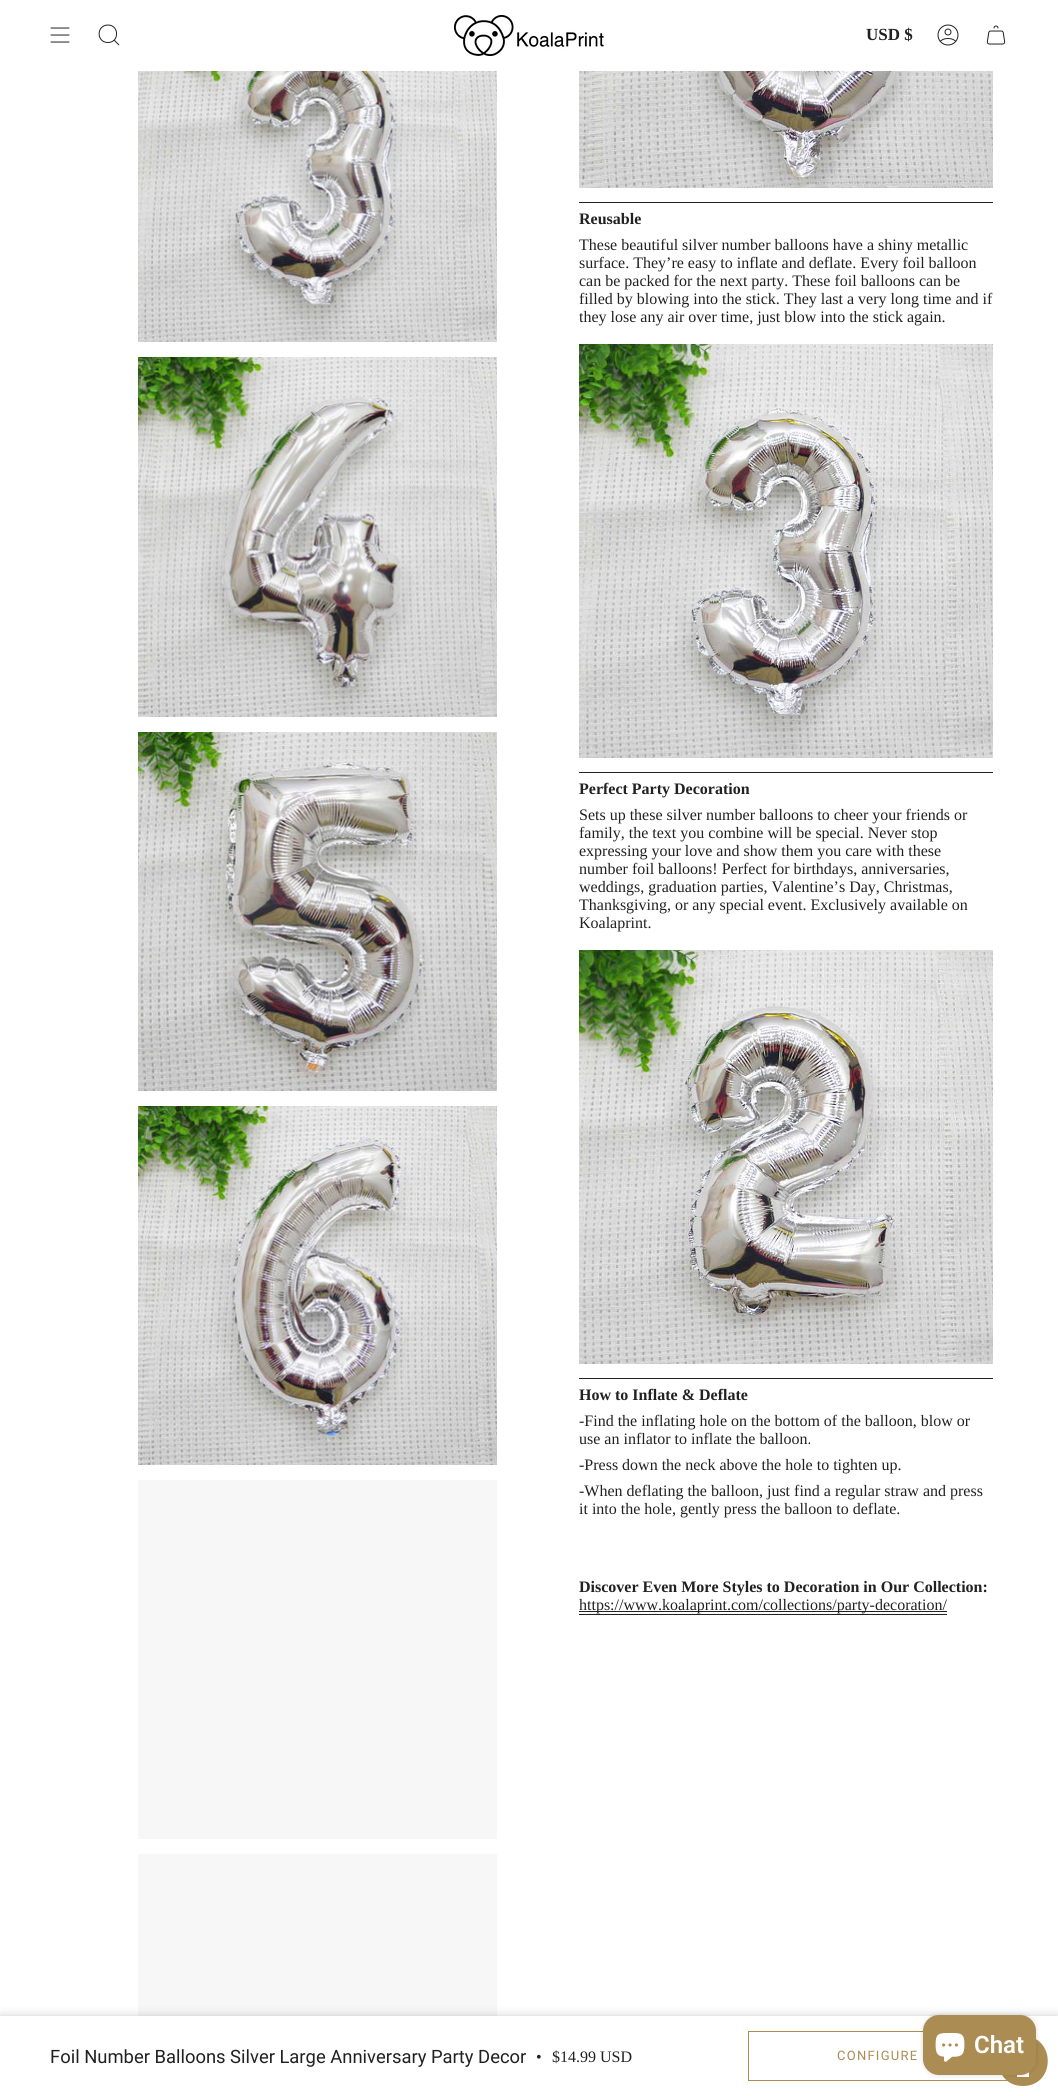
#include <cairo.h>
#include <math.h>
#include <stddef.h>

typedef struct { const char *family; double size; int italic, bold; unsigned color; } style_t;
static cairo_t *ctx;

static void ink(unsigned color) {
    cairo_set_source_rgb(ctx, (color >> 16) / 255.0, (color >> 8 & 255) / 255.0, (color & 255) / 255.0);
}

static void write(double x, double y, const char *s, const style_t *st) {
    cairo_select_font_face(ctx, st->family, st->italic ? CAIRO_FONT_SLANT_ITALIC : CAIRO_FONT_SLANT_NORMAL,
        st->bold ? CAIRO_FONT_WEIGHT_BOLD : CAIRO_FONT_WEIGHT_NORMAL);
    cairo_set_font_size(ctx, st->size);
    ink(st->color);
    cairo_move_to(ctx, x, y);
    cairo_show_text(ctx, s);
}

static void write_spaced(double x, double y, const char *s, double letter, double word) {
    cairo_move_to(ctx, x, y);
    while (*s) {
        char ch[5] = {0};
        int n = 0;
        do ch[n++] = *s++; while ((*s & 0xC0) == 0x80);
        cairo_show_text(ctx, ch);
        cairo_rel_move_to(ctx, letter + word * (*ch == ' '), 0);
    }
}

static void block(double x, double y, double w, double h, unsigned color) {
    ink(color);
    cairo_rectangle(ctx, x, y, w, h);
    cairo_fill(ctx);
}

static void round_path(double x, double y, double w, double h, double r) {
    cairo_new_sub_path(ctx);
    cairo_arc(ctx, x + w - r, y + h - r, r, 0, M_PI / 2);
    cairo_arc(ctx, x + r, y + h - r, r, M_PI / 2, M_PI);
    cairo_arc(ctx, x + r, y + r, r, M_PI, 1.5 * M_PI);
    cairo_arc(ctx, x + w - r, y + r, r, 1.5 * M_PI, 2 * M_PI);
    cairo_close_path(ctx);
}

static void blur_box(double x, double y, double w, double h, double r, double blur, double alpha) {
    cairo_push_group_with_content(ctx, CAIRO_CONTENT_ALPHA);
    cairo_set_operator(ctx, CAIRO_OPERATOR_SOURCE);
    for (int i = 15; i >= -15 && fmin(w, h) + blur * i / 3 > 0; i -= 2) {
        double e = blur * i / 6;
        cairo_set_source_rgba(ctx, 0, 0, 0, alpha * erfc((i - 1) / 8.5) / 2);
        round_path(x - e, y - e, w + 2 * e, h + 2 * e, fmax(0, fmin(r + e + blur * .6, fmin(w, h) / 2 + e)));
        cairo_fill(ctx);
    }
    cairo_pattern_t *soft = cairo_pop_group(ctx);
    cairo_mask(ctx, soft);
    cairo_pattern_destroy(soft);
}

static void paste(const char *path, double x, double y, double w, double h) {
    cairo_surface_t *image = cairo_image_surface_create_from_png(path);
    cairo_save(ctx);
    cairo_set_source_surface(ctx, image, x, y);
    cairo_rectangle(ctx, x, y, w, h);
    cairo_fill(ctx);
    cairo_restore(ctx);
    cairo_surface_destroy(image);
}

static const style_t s1 = {"Liberation Serif", 17, 0, 1, 0x212121};
static const style_t s2 = {"Liberation Serif", 16, 0, 1, 0x212121};
static const style_t s3 = {"Liberation Serif", 16, 0, 0, 0x212121};
static const style_t s4 = {"Roboto", 18.4, 0, 0, 0x212121};
static const style_t s5 = {"Roboto SemiBold", 24, 0, 0, 0xffffff};

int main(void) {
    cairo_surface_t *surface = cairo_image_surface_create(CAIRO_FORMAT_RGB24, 1058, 2096);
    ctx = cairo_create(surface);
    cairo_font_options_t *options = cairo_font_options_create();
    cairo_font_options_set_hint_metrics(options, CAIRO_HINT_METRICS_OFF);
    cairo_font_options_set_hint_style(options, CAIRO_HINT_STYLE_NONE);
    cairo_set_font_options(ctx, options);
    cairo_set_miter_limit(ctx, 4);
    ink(0xffffff);
    cairo_paint(ctx);
    cairo_new_path(ctx);
    cairo_move_to(ctx, 51, 28);
    cairo_line_to(ctx, 69, 28);
    cairo_move_to(ctx, 51, 35);
    cairo_line_to(ctx, 69, 35);
    cairo_move_to(ctx, 51, 42);
    cairo_line_to(ctx, 69, 42);
    ink(0x212121);
    cairo_set_line_width(ctx, 1);
    cairo_set_line_cap(ctx, CAIRO_LINE_CAP_ROUND);
    cairo_set_line_join(ctx, CAIRO_LINE_JOIN_ROUND);
    cairo_stroke(ctx);
    cairo_new_path(ctx);
    cairo_move_to(ctx, 108, 25);
    cairo_curve_to(ctx, 119.5, 25, 119.5, 43, 107.5, 42.5);
    cairo_curve_to(ctx, 96, 42, 96.5, 25, 108, 25);
    cairo_close_path(ctx);
    cairo_move_to(ctx, 114, 40);
    cairo_line_to(ctx, 119, 45);
    cairo_set_line_cap(ctx, CAIRO_LINE_CAP_BUTT);
    cairo_set_line_join(ctx, CAIRO_LINE_JOIN_MITER);
    cairo_stroke(ctx);
    paste("pic1.png", 454, 15, 150, 41);
    write(866, 40, "USD $", &s1);
    paste("pic2.png", 937, 24, 22, 22);
    paste("pic3.png", 986, 25, 20, 20);
    paste("pic4.png", 138, 71, 359, 271);
    paste("pic5.png", 138, 357, 359, 360);
    paste("pic6.png", 138, 732, 359, 359);
    paste("pic7.png", 138, 1106, 359, 359);
    block(138, 1480, 359, 359, 0xf7f7f7);
    block(138, 1854, 359, 162, 0xf7f7f7);
    paste("pic8.png", 579, 71, 414, 117);
    block(579, 202, 414, 1, 0x212121);
    write(579, 224, "Reusable", &s2);
    write(579, 250, "These beautiful silver number balloons have a shiny metallic", &s3);
    write(579, 268, "surface. They’re easy to inflate and deflate. Every foil balloon", &s3);
    write(579, 286, "can be packed for the next party. These foil balloons can be", &s3);
    write(579, 304, "filled by blowing into the stick. They last a very long time and if", &s3);
    write(579, 322, "they lose any air over time, just blow into the stick again.", &s3);
    paste("pic9.png", 579, 344, 414, 414);
    block(579, 772, 414, 1, 0x212121);
    write(579, 794, "Perfect Party Decoration", &s2);
    write(579, 820, "Sets up these silver number balloons to cheer your friends or", &s3);
    write(579, 838, "family, the text you combine will be special. Never stop", &s3);
    write(579, 856, "expressing your love and show them you care with these", &s3);
    write(579, 874, "number foil balloons! Perfect for birthdays, anniversaries,", &s3);
    write(579, 892, "weddings, graduation parties, Valentine’s Day, Christmas,", &s3);
    write(579, 910, "Thanksgiving, or any special event. Exclusively available on", &s3);
    write(579, 928, "Koalaprint.", &s3);
    paste("pic10.png", 579, 950, 414, 414);
    block(579, 1378, 414, 1, 0x212121);
    write(579, 1400, "How to Inflate & Deflate", &s2);
    write(579, 1426, "-Find the inflating hole on the bottom of the balloon, blow or", &s3);
    write(579, 1444, "use an inflator to inflate the balloon.", &s3);
    write(579, 1470, "-Press down the neck above the hole to tighten up.", &s3);
    write(579, 1496, "-When deflating the balloon, just find a regular straw and press", &s3);
    write(579, 1514, "it into the hole, gently press the balloon to deflate.", &s3);
    write(579, 1592, "Discover Even More Styles to Decoration in Our Collection:", &s2);
    block(579, 1611, 368, 1, 0x212121);
    write(579, 1610, "https://www.koalaprint.com/collections/party-decoration/", &s3);
    block(579, 1614, 368, 1, 0x212121);
    ink(0x000000);
    blur_box(0, 2016, 1058, 80, 0, 5, 0.2);
    block(0, 2016, 1058, 80, 0xffffff);
    write(50, 2063, "Foil Number Balloons Silver Large Anniversary Party Decor", &s4);
    write(536, 2062, "•", &s3);
    write(552, 2062, "$14.99 USD", &s3);
    cairo_rectangle(ctx, 748.5, 2031.5, 259, 49);
    ink(0xab8c52);
    cairo_stroke(ctx);
    cairo_select_font_face(ctx, "Roboto", CAIRO_FONT_SLANT_NORMAL, CAIRO_FONT_WEIGHT_NORMAL);
    cairo_set_font_size(ctx, 13);
    write_spaced(837, 2060, "CONFIGURE", 1.25, 0);
    ink(0xffffff);
    cairo_new_path(ctx);
    cairo_move_to(ctx, 870, 2056);
    cairo_line_to(ctx, 871, 2055.5);
    cairo_line_to(ctx, 876.5, 2061);
    cairo_line_to(ctx, 876, 2062);
    cairo_close_path(ctx);
    cairo_fill(ctx);
    ink(0xab8c52);
    cairo_set_fill_rule(ctx, CAIRO_FILL_RULE_EVEN_ODD);
    cairo_new_path(ctx);
    cairo_move_to(ctx, 1017, 2058);
    cairo_line_to(ctx, 1017, 2077);
    cairo_line_to(ctx, 1029, 2077);
    cairo_line_to(ctx, 1029, 2058);
    cairo_line_to(ctx, 1036, 2058);
    cairo_line_to(ctx, 1023, 2042);
    cairo_line_to(ctx, 1010, 2058);
    cairo_close_path(ctx);
    cairo_move_to(ctx, 1023, 2086);
    cairo_curve_to(ctx, 990, 2086, 990, 2036, 1023, 2036);
    cairo_curve_to(ctx, 1056, 2036, 1056, 2086, 1023, 2086);
    cairo_close_path(ctx);
    cairo_fill(ctx);
    ink(0x000000);
    blur_box(923, 2015, 113, 60, 16, 2.5, 0.15);
    ink(0xab8c52);
    round_path(923, 2015, 113, 60, 16);
    cairo_fill(ctx);
    paste("pic11.png", 935, 2033, 30, 29);
    write(974, 2053, "Chat", &s5);
    cairo_surface_write_to_png(surface, "screenshot.png");
    cairo_font_options_destroy(options);
    cairo_destroy(ctx);
    cairo_surface_destroy(surface);
    return 0;
}
